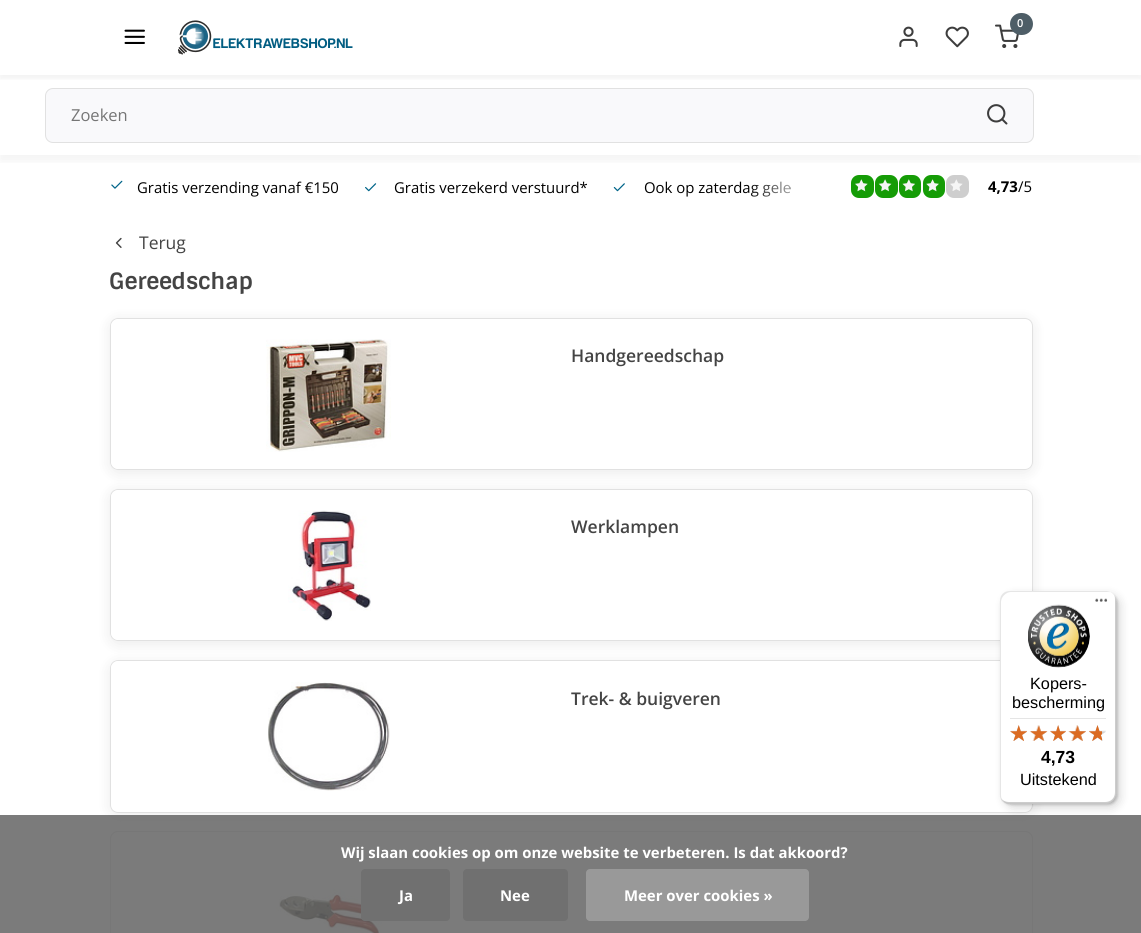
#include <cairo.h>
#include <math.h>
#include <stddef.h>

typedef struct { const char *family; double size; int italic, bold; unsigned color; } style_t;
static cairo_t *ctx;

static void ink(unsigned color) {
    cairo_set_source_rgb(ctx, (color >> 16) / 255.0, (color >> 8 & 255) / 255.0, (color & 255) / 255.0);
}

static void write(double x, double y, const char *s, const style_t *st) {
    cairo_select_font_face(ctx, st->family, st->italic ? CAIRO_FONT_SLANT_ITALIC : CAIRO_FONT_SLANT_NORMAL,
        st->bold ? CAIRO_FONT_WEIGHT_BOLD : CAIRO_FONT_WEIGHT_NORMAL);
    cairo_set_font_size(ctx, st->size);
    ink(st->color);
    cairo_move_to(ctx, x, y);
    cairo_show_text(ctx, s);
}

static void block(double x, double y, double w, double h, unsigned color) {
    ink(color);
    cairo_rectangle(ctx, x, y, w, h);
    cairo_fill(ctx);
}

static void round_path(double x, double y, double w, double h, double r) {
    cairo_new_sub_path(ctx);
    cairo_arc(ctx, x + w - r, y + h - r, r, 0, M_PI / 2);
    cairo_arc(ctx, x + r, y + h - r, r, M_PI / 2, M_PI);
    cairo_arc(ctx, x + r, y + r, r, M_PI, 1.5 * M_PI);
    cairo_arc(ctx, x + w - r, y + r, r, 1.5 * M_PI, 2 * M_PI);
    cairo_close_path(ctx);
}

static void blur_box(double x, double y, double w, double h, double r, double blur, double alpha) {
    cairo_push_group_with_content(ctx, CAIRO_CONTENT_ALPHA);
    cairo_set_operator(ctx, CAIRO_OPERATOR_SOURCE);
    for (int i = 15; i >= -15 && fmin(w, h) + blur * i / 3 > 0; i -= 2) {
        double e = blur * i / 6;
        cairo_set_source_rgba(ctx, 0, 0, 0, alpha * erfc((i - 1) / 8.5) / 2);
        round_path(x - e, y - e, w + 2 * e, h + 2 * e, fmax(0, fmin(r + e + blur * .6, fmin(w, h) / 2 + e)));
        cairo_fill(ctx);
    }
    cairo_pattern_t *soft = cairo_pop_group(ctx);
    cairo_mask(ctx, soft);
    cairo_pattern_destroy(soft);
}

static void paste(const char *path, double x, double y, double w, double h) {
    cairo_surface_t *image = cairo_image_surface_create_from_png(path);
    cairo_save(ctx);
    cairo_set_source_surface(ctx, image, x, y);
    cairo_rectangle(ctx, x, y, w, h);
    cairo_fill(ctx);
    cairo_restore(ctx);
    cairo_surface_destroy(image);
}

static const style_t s1 = {"Open Sans SemiBold", 11, 0, 0, 0xffffff};
static const style_t s2 = {"Open Sans", 16.5, 0, 0, 0x757575};
static const style_t s3 = {"Open Sans", 14.9, 0, 0, 0x000000};
static const style_t s4 = {"Open Sans", 14.9, 0, 1, 0x000000};
static const style_t s5 = {"Open Sans", 17.5, 0, 0, 0x444444};
static const style_t s6 = {"Sintony", 22.5, 0, 1, 0x444444};
static const style_t s7 = {"Open Sans SemiBold", 17.5, 0, 0, 0x444444};
static const style_t s8 = {"Liberation Sans", 16.25, 0, 0, 0x000000};
static const style_t s9 = {"Liberation Sans", 17.5, 0, 1, 0x000000};
static const style_t s10 = {"Open Sans", 14.9, 0, 1, 0xffffff};

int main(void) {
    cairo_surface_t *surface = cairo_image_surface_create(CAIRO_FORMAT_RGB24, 1141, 933);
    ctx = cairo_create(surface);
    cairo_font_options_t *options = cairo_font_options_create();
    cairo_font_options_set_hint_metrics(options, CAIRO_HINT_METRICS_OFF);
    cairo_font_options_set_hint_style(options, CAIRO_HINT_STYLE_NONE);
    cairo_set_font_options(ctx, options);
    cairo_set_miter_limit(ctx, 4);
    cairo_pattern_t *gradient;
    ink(0xffffff);
    cairo_paint(ctx);
    ink(0x159c06);
    round_path(851, 175, 23, 23, 8);
    cairo_fill(ctx);
    paste("pic10.png", 855, 179, 13, 13);
    round_path(875, 175, 23, 23, 8);
    cairo_fill(ctx);
    paste("pic11.png", 878, 179, 14, 13);
    round_path(899, 175, 22, 23, 8);
    cairo_fill(ctx);
    paste("pic12.png", 902, 179, 13, 13);
    round_path(923, 175, 22, 23, 8);
    cairo_fill(ctx);
    paste("pic13.png", 926, 179, 13, 13);
    ink(0xcecece);
    round_path(946, 175, 23, 23, 8);
    cairo_fill(ctx);
    paste("pic14.png", 950, 179, 13, 12);
    cairo_save(ctx);
    cairo_rectangle(ctx, 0, 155, 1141, 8);
    cairo_clip(ctx);
    ink(0x000000);
    blur_box(0, 6, 1141, 155, 0, 6, 0.05);
    cairo_restore(ctx);
    cairo_save(ctx);
    cairo_rectangle(ctx, 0, 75, 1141, 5);
    cairo_clip(ctx);
    ink(0x000000);
    blur_box(0, 4, 1141, 75, 0, 2.5, 0.05);
    cairo_restore(ctx);
    paste("pic1.png", 124, 29, 21, 15);
    paste("pic2.png", 178, 20, 175, 35);
    paste("pic3.png", 995, 24, 24, 24);
    ink(0x4e5e67);
    round_path(1010, 13, 23, 22, 11);
    cairo_fill(ctx);
    write(1017, 27, "0", &s1);
    paste("pic4.png", 899, 26, 19, 21);
    paste("pic5.png", 945, 26, 24, 22);
    ink(0xf9f9fb);
    round_path(45.5, 88.5, 988, 54, 7.5);
    cairo_fill_preserve(ctx);
    ink(0xe1e1e1);
    cairo_set_line_width(ctx, 1);
    cairo_stroke(ctx);
    write(71, 121, "Zoeken", &s2);
    paste("pic6.png", 987, 104, 21, 21);
    paste("pic7.png", 111, 180, 12, 9);
    write(137, 193, "Gratis verzending vanaf €150", &s3);
    paste("pic8.png", 365, 183, 12, 9);
    write(394, 193, "Gratis verzekerd verstuurd*", &s3);
    paste("pic9.png", 613, 183, 12, 9);
    write(644, 193, "Ook op zaterdag gele", &s3);
    gradient = cairo_pattern_create_linear(748, 186, 814, 186);
    cairo_pattern_add_color_stop_rgba(gradient, 0, 1, 1, 1, 0);
    cairo_pattern_add_color_stop_rgba(gradient, 1, 1, 1, 1, 1);
    cairo_set_source(ctx, gradient);
    cairo_pattern_destroy(gradient);
    cairo_rectangle(ctx, 750, 181, 40, 16);
    cairo_fill(ctx);
    write(988, 192, "4,73", &s4);
    write(1018, 192, "/5", &s3);
    paste("pic15.png", 115, 237, 7, 11);
    write(139, 249, "Terug", &s5);
    write(109, 289, "Gereedschap", &s6);
    cairo_save(ctx);
    cairo_set_fill_rule(ctx, CAIRO_FILL_RULE_EVEN_ODD);
    cairo_new_path(ctx);
    cairo_move_to(ctx, 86, 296);
    cairo_line_to(ctx, 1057, 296);
    cairo_line_to(ctx, 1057, 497);
    cairo_line_to(ctx, 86, 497);
    cairo_close_path(ctx);
    cairo_move_to(ctx, 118, 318);
    cairo_line_to(ctx, 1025, 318);
    cairo_curve_to(ctx, 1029.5, 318, 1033, 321.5, 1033, 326);
    cairo_line_to(ctx, 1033, 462);
    cairo_curve_to(ctx, 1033, 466.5, 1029.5, 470, 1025, 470);
    cairo_line_to(ctx, 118, 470);
    cairo_curve_to(ctx, 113.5, 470, 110, 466.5, 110, 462);
    cairo_line_to(ctx, 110, 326);
    cairo_curve_to(ctx, 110, 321.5, 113.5, 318, 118, 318);
    cairo_close_path(ctx);
    cairo_clip(ctx);
    ink(0x000000);
    blur_box(110, 320, 923, 153, 8, 7.5, 0.08);
    cairo_restore(ctx);
    round_path(110.5, 318.5, 922, 151, 7.5);
    ink(0xe1e1e1);
    cairo_stroke(ctx);
    cairo_save(ctx);
    cairo_set_fill_rule(ctx, CAIRO_FILL_RULE_EVEN_ODD);
    cairo_new_path(ctx);
    cairo_move_to(ctx, 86, 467);
    cairo_line_to(ctx, 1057, 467);
    cairo_line_to(ctx, 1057, 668);
    cairo_line_to(ctx, 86, 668);
    cairo_close_path(ctx);
    cairo_move_to(ctx, 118, 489);
    cairo_line_to(ctx, 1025, 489);
    cairo_curve_to(ctx, 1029.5, 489, 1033, 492.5, 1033, 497);
    cairo_line_to(ctx, 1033, 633);
    cairo_curve_to(ctx, 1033, 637.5, 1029.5, 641, 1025, 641);
    cairo_line_to(ctx, 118, 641);
    cairo_curve_to(ctx, 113.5, 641, 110, 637.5, 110, 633);
    cairo_line_to(ctx, 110, 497);
    cairo_curve_to(ctx, 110, 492.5, 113.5, 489, 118, 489);
    cairo_close_path(ctx);
    cairo_clip(ctx);
    ink(0x000000);
    blur_box(110, 491, 923, 153, 8, 7.5, 0.08);
    cairo_restore(ctx);
    ink(0xffffff);
    cairo_new_path(ctx);
    cairo_move_to(ctx, 119, 319);
    cairo_line_to(ctx, 546, 319);
    cairo_line_to(ctx, 546, 469);
    cairo_line_to(ctx, 119, 469);
    cairo_curve_to(ctx, 114.5, 469, 111, 465.5, 111, 461);
    cairo_line_to(ctx, 111, 327);
    cairo_curve_to(ctx, 111, 322.5, 114.5, 319, 119, 319);
    cairo_close_path(ctx);
    cairo_fill(ctx);
    paste("pic16.png", 266, 339, 125, 113);
    write(571, 362, "Handgereedschap", &s7);
    round_path(110.5, 489.5, 922, 151, 7.5);
    ink(0xe1e1e1);
    cairo_stroke(ctx);
    cairo_save(ctx);
    cairo_set_fill_rule(ctx, CAIRO_FILL_RULE_EVEN_ODD);
    cairo_new_path(ctx);
    cairo_move_to(ctx, 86, 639);
    cairo_line_to(ctx, 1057, 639);
    cairo_line_to(ctx, 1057, 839);
    cairo_line_to(ctx, 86, 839);
    cairo_close_path(ctx);
    cairo_move_to(ctx, 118, 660);
    cairo_line_to(ctx, 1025, 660);
    cairo_curve_to(ctx, 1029.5, 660, 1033, 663.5, 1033, 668);
    cairo_line_to(ctx, 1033, 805);
    cairo_curve_to(ctx, 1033, 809.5, 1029.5, 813, 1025, 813);
    cairo_line_to(ctx, 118, 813);
    cairo_curve_to(ctx, 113.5, 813, 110, 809.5, 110, 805);
    cairo_line_to(ctx, 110, 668);
    cairo_curve_to(ctx, 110, 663.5, 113.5, 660, 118, 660);
    cairo_close_path(ctx);
    cairo_clip(ctx);
    ink(0x000000);
    blur_box(110, 663, 923, 152, 8, 7.5, 0.08);
    cairo_restore(ctx);
    ink(0xffffff);
    cairo_new_path(ctx);
    cairo_move_to(ctx, 119, 490);
    cairo_line_to(ctx, 546, 490);
    cairo_line_to(ctx, 546, 640);
    cairo_line_to(ctx, 119, 640);
    cairo_curve_to(ctx, 114.5, 640, 111, 636.5, 111, 632);
    cairo_line_to(ctx, 111, 498);
    cairo_curve_to(ctx, 111, 493.5, 114.5, 490, 119, 490);
    cairo_close_path(ctx);
    cairo_fill(ctx);
    paste("pic17.png", 288, 510, 83, 111);
    write(571, 533, "Werklampen", &s7);
    round_path(110.5, 660.5, 922, 152, 7.5);
    ink(0xe1e1e1);
    cairo_stroke(ctx);
    ink(0xffffff);
    cairo_new_path(ctx);
    cairo_move_to(ctx, 119, 661);
    cairo_line_to(ctx, 546, 661);
    cairo_line_to(ctx, 546, 811);
    cairo_line_to(ctx, 119, 811);
    cairo_curve_to(ctx, 114.5, 811, 111, 807.5, 111, 803);
    cairo_line_to(ctx, 111, 669);
    cairo_curve_to(ctx, 111, 664.5, 114.5, 661, 119, 661);
    cairo_close_path(ctx);
    cairo_fill(ctx);
    paste("pic18.png", 268, 682, 122, 109);
    write(571, 705, "Trek- & buigveren", &s7);
    round_path(110.5, 831.5, 922, 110, 7.5);
    ink(0xe1e1e1);
    cairo_stroke(ctx);
    paste("pic19.png", 276, 888, 114, 45);
    cairo_set_source_rgba(ctx, 0.392, 0.392, 0.392, 0.85);
    cairo_rectangle(ctx, 0, 815, 1141, 118);
    cairo_fill(ctx);
    ink(0x000000);
    blur_box(1004, 595, 116, 213, 10, 5, 0.15);
    blur_box(1001, 593, 117, 212, 10, 1, 0.15);
    ink(0xffffff);
    round_path(1000, 591, 116, 213, 10);
    cairo_fill(ctx);
    cairo_set_source_rgba(ctx, 0, 0, 0, 0.1);
    cairo_new_path(ctx);
    cairo_move_to(ctx, 1011, 592);
    cairo_line_to(ctx, 1108, 592);
    cairo_curve_to(ctx, 1109, 592, 1111, 592, 1112, 593);
    cairo_curve_to(ctx, 1110, 592, 1108, 591, 1106, 591);
    cairo_line_to(ctx, 1010, 591);
    cairo_curve_to(ctx, 1004, 591, 1000, 595, 1000, 601);
    cairo_line_to(ctx, 1000, 794);
    cairo_curve_to(ctx, 1000, 797, 1001, 800, 1003, 802);
    cairo_curve_to(ctx, 1002, 800, 1001, 798, 1001, 795);
    cairo_line_to(ctx, 1001, 602);
    cairo_curve_to(ctx, 1001, 597, 1006, 592, 1011, 592);
    cairo_close_path(ctx);
    cairo_fill(ctx);
    cairo_set_source_rgba(ctx, 0, 0, 0, 0.2);
    cairo_new_path(ctx);
    cairo_move_to(ctx, 1001, 798);
    cairo_curve_to(ctx, 1003, 802, 1006, 804, 1010, 804);
    cairo_line_to(ctx, 1106, 804);
    cairo_curve_to(ctx, 1112, 804, 1116, 800, 1116, 794);
    cairo_line_to(ctx, 1116, 601);
    cairo_curve_to(ctx, 1116, 599, 1115, 596, 1114, 595);
    cairo_curve_to(ctx, 1115, 596, 1115, 598, 1115, 600);
    cairo_line_to(ctx, 1115, 792);
    cairo_curve_to(ctx, 1115, 798, 1111, 802, 1105, 802);
    cairo_line_to(ctx, 1009, 802);
    cairo_curve_to(ctx, 1006, 802, 1003, 801, 1001, 798);
    cairo_close_path(ctx);
    cairo_fill(ctx);
    paste("pic20.png", 1095, 598, 13, 4);
    cairo_set_source_rgba(ctx, 0.196, 0.196, 0.196, 0.2);
    cairo_new_path(ctx);
    cairo_move_to(ctx, 1002, 800);
    cairo_curve_to(ctx, 1004, 803, 1007, 804, 1010, 804);
    cairo_line_to(ctx, 1106, 804);
    cairo_curve_to(ctx, 1112, 804, 1116, 800, 1116, 794);
    cairo_line_to(ctx, 1116, 793);
    cairo_curve_to(ctx, 1116, 799, 1111, 803, 1106, 803);
    cairo_line_to(ctx, 1009, 803);
    cairo_curve_to(ctx, 1007, 803, 1004, 802, 1002, 800);
    cairo_close_path(ctx);
    cairo_fill(ctx);
    cairo_set_source_rgba(ctx, 1, 1, 1, 0.3);
    cairo_new_path(ctx);
    cairo_move_to(ctx, 1002, 800);
    cairo_curve_to(ctx, 1004, 803, 1007, 804, 1010, 804);
    cairo_line_to(ctx, 1106, 804);
    cairo_curve_to(ctx, 1112, 804, 1116, 800, 1116, 794);
    cairo_line_to(ctx, 1116, 793);
    cairo_curve_to(ctx, 1116, 799, 1111, 803, 1106, 803);
    cairo_line_to(ctx, 1009, 803);
    cairo_curve_to(ctx, 1007, 803, 1004, 802, 1002, 800);
    cairo_close_path(ctx);
    cairo_fill(ctx);
    paste("pic21.png", 1028, 604, 62, 64);
    write(1030, 689, "Kopers-", &s8);
    write(1012, 708, "bescherming", &s8);
    block(1010, 718, 96, 1, 0xe5e5e5);
    paste("pic22.png", 1010, 725, 17, 16);
    paste("pic23.png", 1030, 725, 17, 16);
    paste("pic24.png", 1050, 725, 16, 16);
    paste("pic25.png", 1068, 725, 18, 16);
    paste("pic26.png", 1089, 725, 17, 16);
    paste("pic27.png", 1010, 725, 17, 16);
    paste("pic28.png", 1029, 725, 19, 16);
    paste("pic29.png", 1050, 725, 16, 16);
    paste("pic30.png", 1068, 725, 18, 16);
    paste("pic31.png", 1089, 725, 13, 16);
    write(1041, 763, "4,73", &s9);
    write(1020, 785, "Uitstekend", &s8);
    write(341, 858, "Wij slaan cookies op om onze website te verbeteren. Is dat akkoord?", &s10);
    ink(0x707070);
    round_path(361, 869, 89, 52, 4);
    cairo_fill(ctx);
    write(399, 901, "Ja", &s10);
    ink(0x707070);
    round_path(463, 869, 105, 52, 4);
    cairo_fill(ctx);
    write(500, 901, "Nee", &s10);
    ink(0x999999);
    round_path(586, 869, 223, 52, 4);
    cairo_fill(ctx);
    write(624, 901, "Meer over cookies »", &s10);
    cairo_surface_write_to_png(surface, "screenshot.png");
    cairo_font_options_destroy(options);
    cairo_destroy(ctx);
    cairo_surface_destroy(surface);
    return 0;
}
